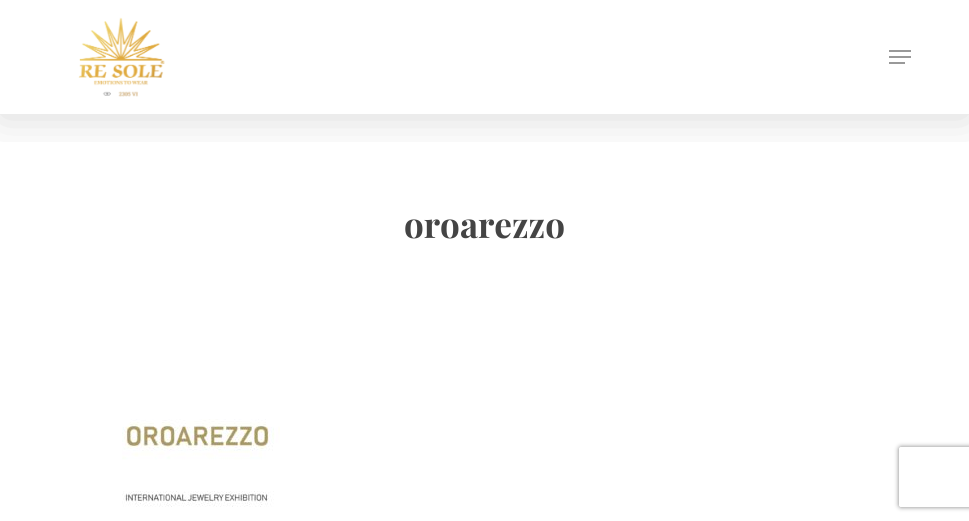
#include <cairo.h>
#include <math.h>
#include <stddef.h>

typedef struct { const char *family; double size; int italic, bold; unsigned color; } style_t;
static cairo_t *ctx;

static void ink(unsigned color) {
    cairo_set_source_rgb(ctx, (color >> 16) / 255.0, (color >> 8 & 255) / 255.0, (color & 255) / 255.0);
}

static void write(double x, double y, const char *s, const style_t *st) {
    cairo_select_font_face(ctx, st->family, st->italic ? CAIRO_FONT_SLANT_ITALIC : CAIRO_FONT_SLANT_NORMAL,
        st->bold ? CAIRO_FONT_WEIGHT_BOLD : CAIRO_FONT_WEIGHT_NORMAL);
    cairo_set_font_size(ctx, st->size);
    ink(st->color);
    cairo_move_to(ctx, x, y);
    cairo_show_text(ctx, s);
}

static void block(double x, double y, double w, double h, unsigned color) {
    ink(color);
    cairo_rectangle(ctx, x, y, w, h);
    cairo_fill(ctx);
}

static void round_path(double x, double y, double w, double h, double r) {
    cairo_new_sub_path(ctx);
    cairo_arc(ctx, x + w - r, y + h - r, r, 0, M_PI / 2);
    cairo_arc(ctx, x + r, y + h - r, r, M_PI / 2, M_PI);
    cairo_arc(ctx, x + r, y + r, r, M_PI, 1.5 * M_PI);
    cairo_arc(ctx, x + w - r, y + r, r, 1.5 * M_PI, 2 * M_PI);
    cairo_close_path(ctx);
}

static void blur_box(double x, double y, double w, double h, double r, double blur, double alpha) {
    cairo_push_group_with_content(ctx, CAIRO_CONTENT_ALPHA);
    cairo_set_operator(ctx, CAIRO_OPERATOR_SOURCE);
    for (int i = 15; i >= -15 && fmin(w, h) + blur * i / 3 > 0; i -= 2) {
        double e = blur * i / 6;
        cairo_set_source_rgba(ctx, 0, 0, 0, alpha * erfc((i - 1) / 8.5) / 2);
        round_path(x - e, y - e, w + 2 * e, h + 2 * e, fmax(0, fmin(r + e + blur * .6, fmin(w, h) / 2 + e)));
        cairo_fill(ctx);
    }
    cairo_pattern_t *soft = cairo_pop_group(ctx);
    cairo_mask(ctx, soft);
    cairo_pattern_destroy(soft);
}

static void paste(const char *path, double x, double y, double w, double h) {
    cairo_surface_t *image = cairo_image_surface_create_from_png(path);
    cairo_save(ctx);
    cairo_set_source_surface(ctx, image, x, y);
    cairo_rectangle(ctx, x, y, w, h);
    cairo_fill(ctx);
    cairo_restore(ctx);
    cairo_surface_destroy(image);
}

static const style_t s1 = {"Playfair Display", 35, 0, 1, 0x444444};

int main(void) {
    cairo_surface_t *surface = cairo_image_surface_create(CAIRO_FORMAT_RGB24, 969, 521);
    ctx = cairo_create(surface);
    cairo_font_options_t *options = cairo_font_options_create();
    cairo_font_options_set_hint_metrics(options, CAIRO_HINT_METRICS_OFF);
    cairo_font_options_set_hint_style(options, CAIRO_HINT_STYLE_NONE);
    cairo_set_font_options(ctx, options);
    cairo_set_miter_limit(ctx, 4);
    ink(0xffffff);
    cairo_paint(ctx);
    cairo_save(ctx);
    cairo_rectangle(ctx, 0, 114, 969, 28);
    cairo_clip(ctx);
    ink(0x000000);
    blur_box(0, 3, 969, 114, 0, 22.5, 0.15);
    cairo_restore(ctx);
    paste("pic1.png", 78, 17, 87, 80);
    block(889, 50, 22, 2, 0x999999);
    block(889, 62, 16, 2, 0x999999);
    block(889, 56, 22, 2, 0x999999);
    write(404, 238, "oroarezzo", &s1);
    paste("pic2.png", 122, 419, 158, 88);
    cairo_save(ctx);
    cairo_set_fill_rule(ctx, CAIRO_FILL_RULE_EVEN_ODD);
    cairo_new_path(ctx);
    cairo_move_to(ctx, 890, 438);
    cairo_line_to(ctx, 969, 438);
    cairo_line_to(ctx, 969, 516);
    cairo_line_to(ctx, 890, 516);
    cairo_close_path(ctx);
    cairo_move_to(ctx, 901, 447);
    cairo_line_to(ctx, 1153, 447);
    cairo_curve_to(ctx, 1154, 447, 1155, 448, 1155, 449);
    cairo_line_to(ctx, 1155, 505);
    cairo_curve_to(ctx, 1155, 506, 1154, 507, 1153, 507);
    cairo_line_to(ctx, 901, 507);
    cairo_curve_to(ctx, 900, 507, 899, 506, 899, 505);
    cairo_line_to(ctx, 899, 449);
    cairo_curve_to(ctx, 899, 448, 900, 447, 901, 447);
    cairo_close_path(ctx);
    cairo_clip(ctx);
    ink(0x808080);
    blur_box(899, 447, 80, 60, 2, 2.5, 1);
    cairo_restore(ctx);
    cairo_surface_write_to_png(surface, "screenshot.png");
    cairo_font_options_destroy(options);
    cairo_destroy(ctx);
    cairo_surface_destroy(surface);
    return 0;
}
